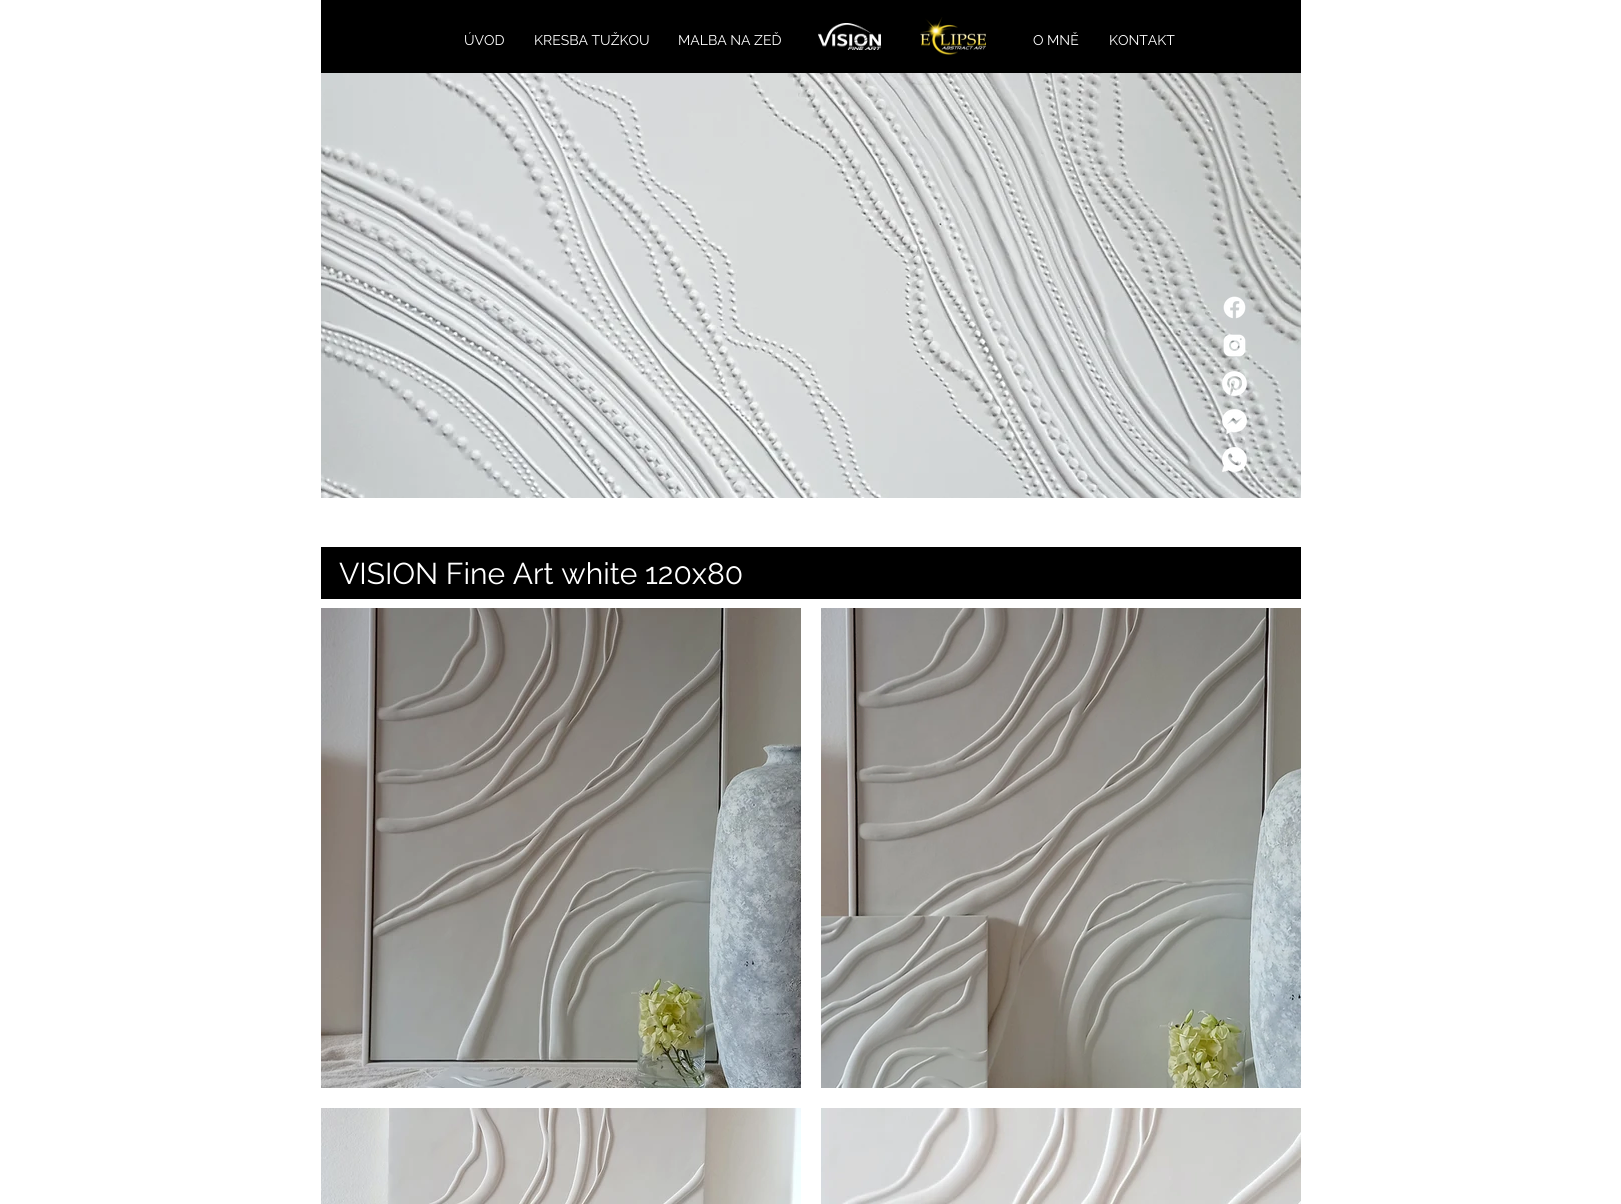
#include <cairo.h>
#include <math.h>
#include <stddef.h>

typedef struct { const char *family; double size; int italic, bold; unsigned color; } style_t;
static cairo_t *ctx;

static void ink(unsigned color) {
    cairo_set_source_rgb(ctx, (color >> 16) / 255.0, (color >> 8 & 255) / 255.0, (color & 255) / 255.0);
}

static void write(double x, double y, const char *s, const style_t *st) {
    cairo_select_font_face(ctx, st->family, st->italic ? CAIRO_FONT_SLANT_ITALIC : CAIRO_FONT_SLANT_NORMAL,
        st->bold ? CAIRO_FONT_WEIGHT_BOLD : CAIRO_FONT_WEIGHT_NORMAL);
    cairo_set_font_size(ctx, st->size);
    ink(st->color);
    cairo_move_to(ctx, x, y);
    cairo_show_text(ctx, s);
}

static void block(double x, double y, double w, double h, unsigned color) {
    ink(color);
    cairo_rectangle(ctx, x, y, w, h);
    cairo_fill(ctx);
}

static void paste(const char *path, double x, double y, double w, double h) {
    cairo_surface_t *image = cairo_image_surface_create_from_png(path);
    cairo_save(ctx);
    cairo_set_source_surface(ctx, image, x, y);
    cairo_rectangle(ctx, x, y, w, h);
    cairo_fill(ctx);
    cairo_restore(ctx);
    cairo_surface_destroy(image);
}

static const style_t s1 = {"Raleway", 14, 0, 0, 0xffffff};
static const style_t s2 = {"Raleway", 30, 0, 0, 0xffffff};

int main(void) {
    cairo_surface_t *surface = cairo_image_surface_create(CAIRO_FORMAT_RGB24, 1621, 1204);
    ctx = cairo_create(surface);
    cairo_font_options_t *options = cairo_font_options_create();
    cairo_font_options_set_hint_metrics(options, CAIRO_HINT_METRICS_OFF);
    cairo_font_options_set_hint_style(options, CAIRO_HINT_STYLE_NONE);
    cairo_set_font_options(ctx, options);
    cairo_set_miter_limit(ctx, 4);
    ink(0xffffff);
    cairo_paint(ctx);
    block(321, 0, 980, 73, 0x000000);
    paste("pic1.png", 818, 23, 63, 27);
    paste("pic2.png", 920, 17, 66, 38);
    write(464, 45, "ÚVOD", &s1);
    write(534, 45, "KRESBA TUŽKOU", &s1);
    write(678, 45, "MALBA NA ZEĎ", &s1);
    write(1033, 45, "O MNĚ", &s1);
    write(1109, 45, "KONTAKT", &s1);
    paste("pic3.png", 321, 73, 980, 425);
    paste("pic4.png", 1223, 296, 23, 23);
    paste("pic5.png", 1223, 334, 23, 23);
    paste("pic6.png", 1222, 371, 25, 25);
    paste("pic7.png", 1222, 409, 25, 26);
    paste("pic8.png", 1222, 447, 25, 25);
    block(321, 547, 980, 52, 0x000000);
    write(339, 584, "VISION Fine Art white 120x80", &s2);
    paste("pic9.png", 321, 608, 480, 480);
    paste("pic10.png", 821, 608, 480, 480);
    paste("pic11.png", 321, 1108, 480, 96);
    paste("pic12.png", 821, 1108, 480, 96);
    cairo_surface_write_to_png(surface, "screenshot.png");
    cairo_font_options_destroy(options);
    cairo_destroy(ctx);
    cairo_surface_destroy(surface);
    return 0;
}
